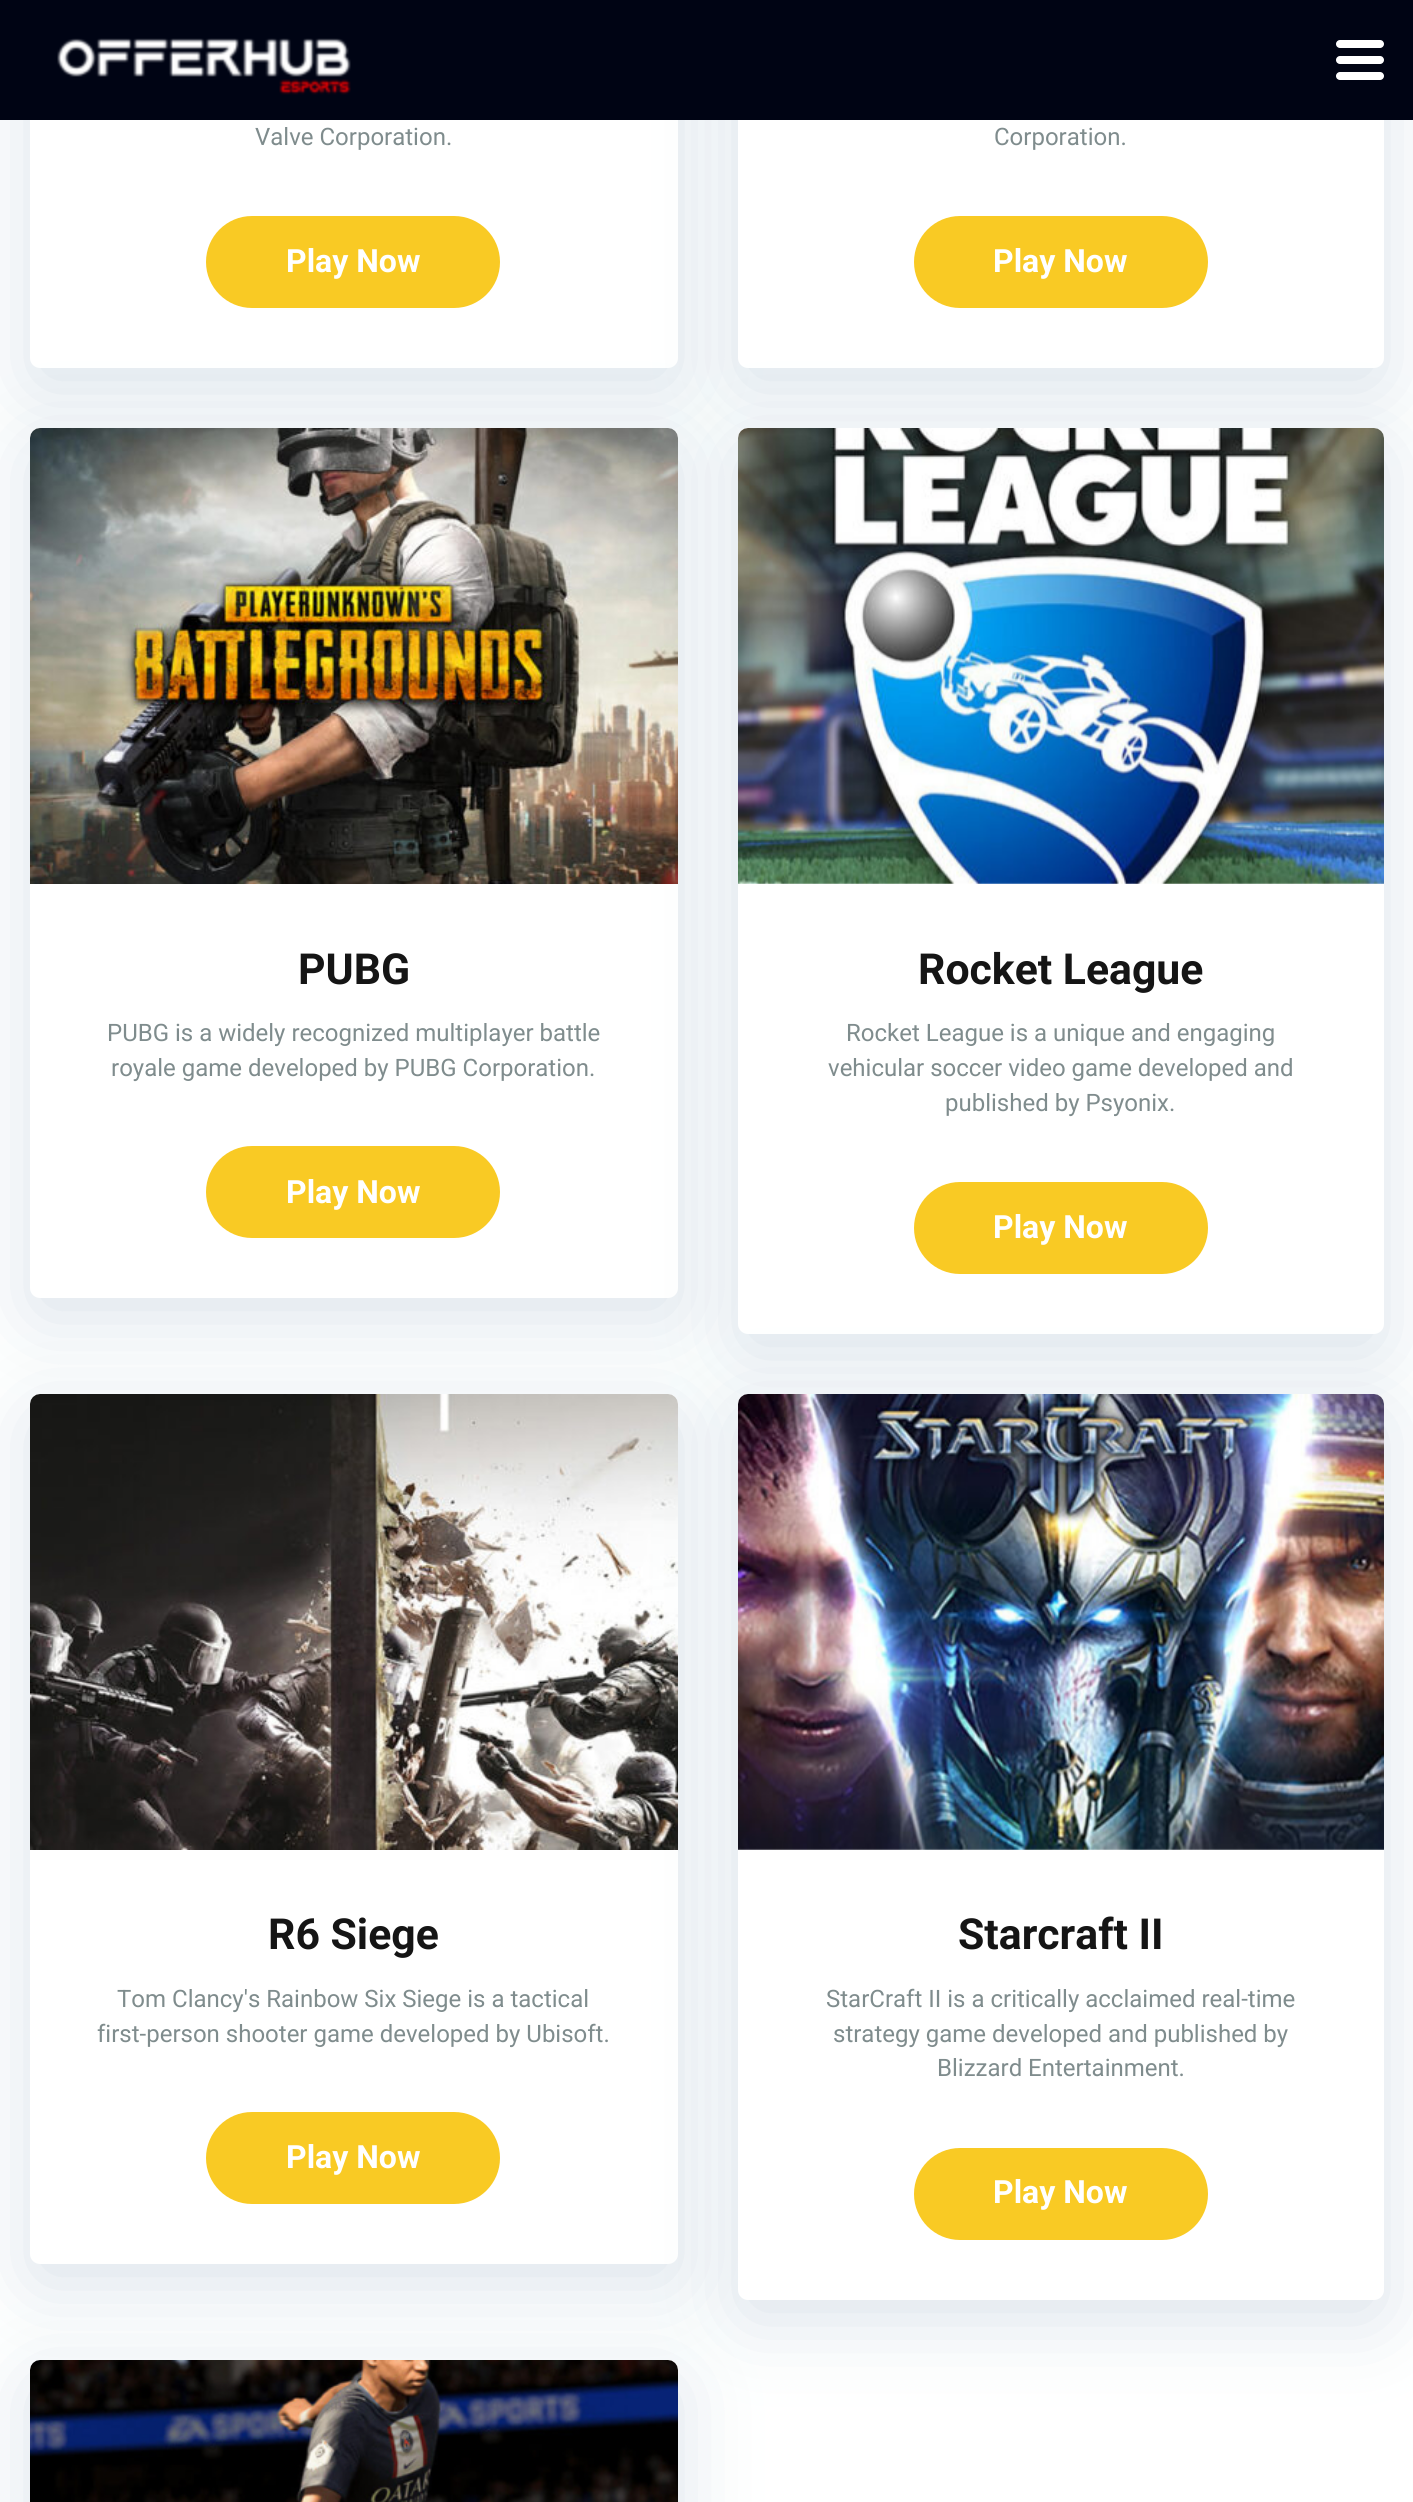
#include <cairo.h>
#include <math.h>
#include <stddef.h>

typedef struct { const char *family; double size; int italic, bold; unsigned color; } style_t;
static cairo_t *ctx;

static void ink(unsigned color) {
    cairo_set_source_rgb(ctx, (color >> 16) / 255.0, (color >> 8 & 255) / 255.0, (color & 255) / 255.0);
}

static void write(double x, double y, const char *s, const style_t *st) {
    cairo_select_font_face(ctx, st->family, st->italic ? CAIRO_FONT_SLANT_ITALIC : CAIRO_FONT_SLANT_NORMAL,
        st->bold ? CAIRO_FONT_WEIGHT_BOLD : CAIRO_FONT_WEIGHT_NORMAL);
    cairo_set_font_size(ctx, st->size);
    ink(st->color);
    cairo_move_to(ctx, x, y);
    cairo_show_text(ctx, s);
}

static void block(double x, double y, double w, double h, unsigned color) {
    ink(color);
    cairo_rectangle(ctx, x, y, w, h);
    cairo_fill(ctx);
}

static void round_path(double x, double y, double w, double h, double r) {
    cairo_new_sub_path(ctx);
    cairo_arc(ctx, x + w - r, y + h - r, r, 0, M_PI / 2);
    cairo_arc(ctx, x + r, y + h - r, r, M_PI / 2, M_PI);
    cairo_arc(ctx, x + r, y + r, r, M_PI, 1.5 * M_PI);
    cairo_arc(ctx, x + w - r, y + r, r, 1.5 * M_PI, 2 * M_PI);
    cairo_close_path(ctx);
}

static void blur_box(double x, double y, double w, double h, double r, double blur, double alpha) {
    cairo_push_group_with_content(ctx, CAIRO_CONTENT_ALPHA);
    cairo_set_operator(ctx, CAIRO_OPERATOR_SOURCE);
    for (int i = 15; i >= -15 && fmin(w, h) + blur * i / 3 > 0; i -= 2) {
        double e = blur * i / 6;
        cairo_set_source_rgba(ctx, 0, 0, 0, alpha * erfc((i - 1) / 8.5) / 2);
        round_path(x - e, y - e, w + 2 * e, h + 2 * e, fmax(0, fmin(r + e + blur * .6, fmin(w, h) / 2 + e)));
        cairo_fill(ctx);
    }
    cairo_pattern_t *soft = cairo_pop_group(ctx);
    cairo_mask(ctx, soft);
    cairo_pattern_destroy(soft);
}

static void paste(const char *path, double x, double y, double w, double h) {
    cairo_surface_t *image = cairo_image_surface_create_from_png(path);
    cairo_save(ctx);
    cairo_set_source_surface(ctx, image, x, y);
    cairo_rectangle(ctx, x, y, w, h);
    cairo_fill(ctx);
    cairo_restore(ctx);
    cairo_surface_destroy(image);
}

static const style_t s1 = {"Roboto", 24, 0, 0, 0x7f8c8d};
static const style_t s2 = {"Roboto", 32, 0, 1, 0xffffff};
static const style_t s3 = {"Roboto", 42.75, 0, 1, 0x151515};

int main(void) {
    cairo_surface_t *surface = cairo_image_surface_create(CAIRO_FORMAT_RGB24, 1413, 2502);
    ctx = cairo_create(surface);
    cairo_font_options_t *options = cairo_font_options_create();
    cairo_font_options_set_hint_metrics(options, CAIRO_HINT_METRICS_OFF);
    cairo_font_options_set_hint_style(options, CAIRO_HINT_STYLE_NONE);
    cairo_set_font_options(ctx, options);
    cairo_set_miter_limit(ctx, 4);
    ink(0xffffff);
    cairo_paint(ctx);
    ink(0x6d8dad);
    blur_box(30, -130, 648, 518, 10, 40, 0.25);
    ink(0xffffff);
    round_path(30, -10, 648, 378, 10);
    cairo_fill(ctx);
    ink(0x6d8dad);
    blur_box(738, -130, 646, 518, 10, 40, 0.25);
    ink(0xffffff);
    round_path(738, -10, 646, 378, 10);
    cairo_fill(ctx);
    block(0, 0, 1413, 120, 0x000414);
    paste("pic1.png", 57, 38, 294, 57);
    ink(0xffffff);
    round_path(1336, 40, 48, 8, 4);
    cairo_fill(ctx);
    round_path(1336, 56, 48, 8, 4);
    cairo_fill(ctx);
    round_path(1336, 72, 48, 8, 4);
    cairo_fill(ctx);
    write(255, 145, "Valve Corporation.", &s1);
    ink(0xf9ca24);
    round_path(206, 216, 294, 92, 46);
    cairo_fill(ctx);
    write(286, 272, "Play Now", &s2);
    write(994, 145, "Corporation.", &s1);
    ink(0xf9ca24);
    round_path(914, 216, 294, 92, 46);
    cairo_fill(ctx);
    write(993, 272, "Play Now", &s2);
    ink(0x6d8dad);
    blur_box(30, 448, 648, 870, 10, 40, 0.25);
    ink(0xffffff);
    round_path(30, 428, 648, 870, 10);
    cairo_fill(ctx);
    paste("pic2.png", 30, 428, 648, 456);
    write(298, 984, "PUBG", &s3);
    write(107, 1041, "PUBG is a widely recognized multiplayer battle", &s1);
    write(111, 1076, "royale game developed by PUBG Corporation.", &s1);
    ink(0xf9ca24);
    round_path(206, 1146, 294, 92, 46);
    cairo_fill(ctx);
    write(286, 1203, "Play Now", &s2);
    ink(0x6d8dad);
    blur_box(738, 448, 646, 906, 10, 40, 0.25);
    ink(0xffffff);
    round_path(738, 428, 646, 906, 10);
    cairo_fill(ctx);
    paste("pic3.png", 738, 428, 646, 456);
    write(918, 984, "Rocket League", &s3);
    write(846, 1041, "Rocket League is a unique and engaging", &s1);
    write(828, 1076, "vehicular soccer video game developed and", &s1);
    write(945, 1111, "published by Psyonix.", &s1);
    ink(0xf9ca24);
    round_path(914, 1182, 294, 92, 46);
    cairo_fill(ctx);
    write(993, 1238, "Play Now", &s2);
    ink(0x6d8dad);
    blur_box(30, 1414, 648, 870, 10, 40, 0.25);
    ink(0xffffff);
    round_path(30, 1394, 648, 870, 10);
    cairo_fill(ctx);
    paste("pic4.png", 30, 1394, 648, 456);
    write(268, 1949, "R6 Siege", &s3);
    write(117, 2007, "Tom Clancy's Rainbow Six Siege is a tactical", &s1);
    write(97, 2042, "first-person shooter game developed by Ubisoft.", &s1);
    ink(0xf9ca24);
    round_path(206, 2112, 294, 92, 46);
    cairo_fill(ctx);
    write(286, 2168, "Play Now", &s2);
    ink(0x6d8dad);
    blur_box(738, 1414, 646, 906, 10, 40, 0.25);
    ink(0xffffff);
    round_path(738, 1394, 646, 906, 10);
    cairo_fill(ctx);
    paste("pic5.png", 738, 1394, 646, 456);
    write(958, 1949, "Starcraft II", &s3);
    write(826, 2007, "StarCraft II is a critically acclaimed real-time", &s1);
    write(833, 2042, "strategy game developed and published by", &s1);
    write(937, 2076, "Blizzard Entertainment.", &s1);
    ink(0xf9ca24);
    round_path(914, 2148, 294, 92, 46);
    cairo_fill(ctx);
    write(993, 2203, "Play Now", &s2);
    ink(0x6d8dad);
    blur_box(30, 2380, 648, 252, 10, 40, 0.25);
    ink(0xffffff);
    round_path(30, 2360, 648, 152, 10);
    cairo_fill(ctx);
    paste("pic6.png", 30, 2360, 648, 142);
    cairo_surface_write_to_png(surface, "screenshot.png");
    cairo_font_options_destroy(options);
    cairo_destroy(ctx);
    cairo_surface_destroy(surface);
    return 0;
}
